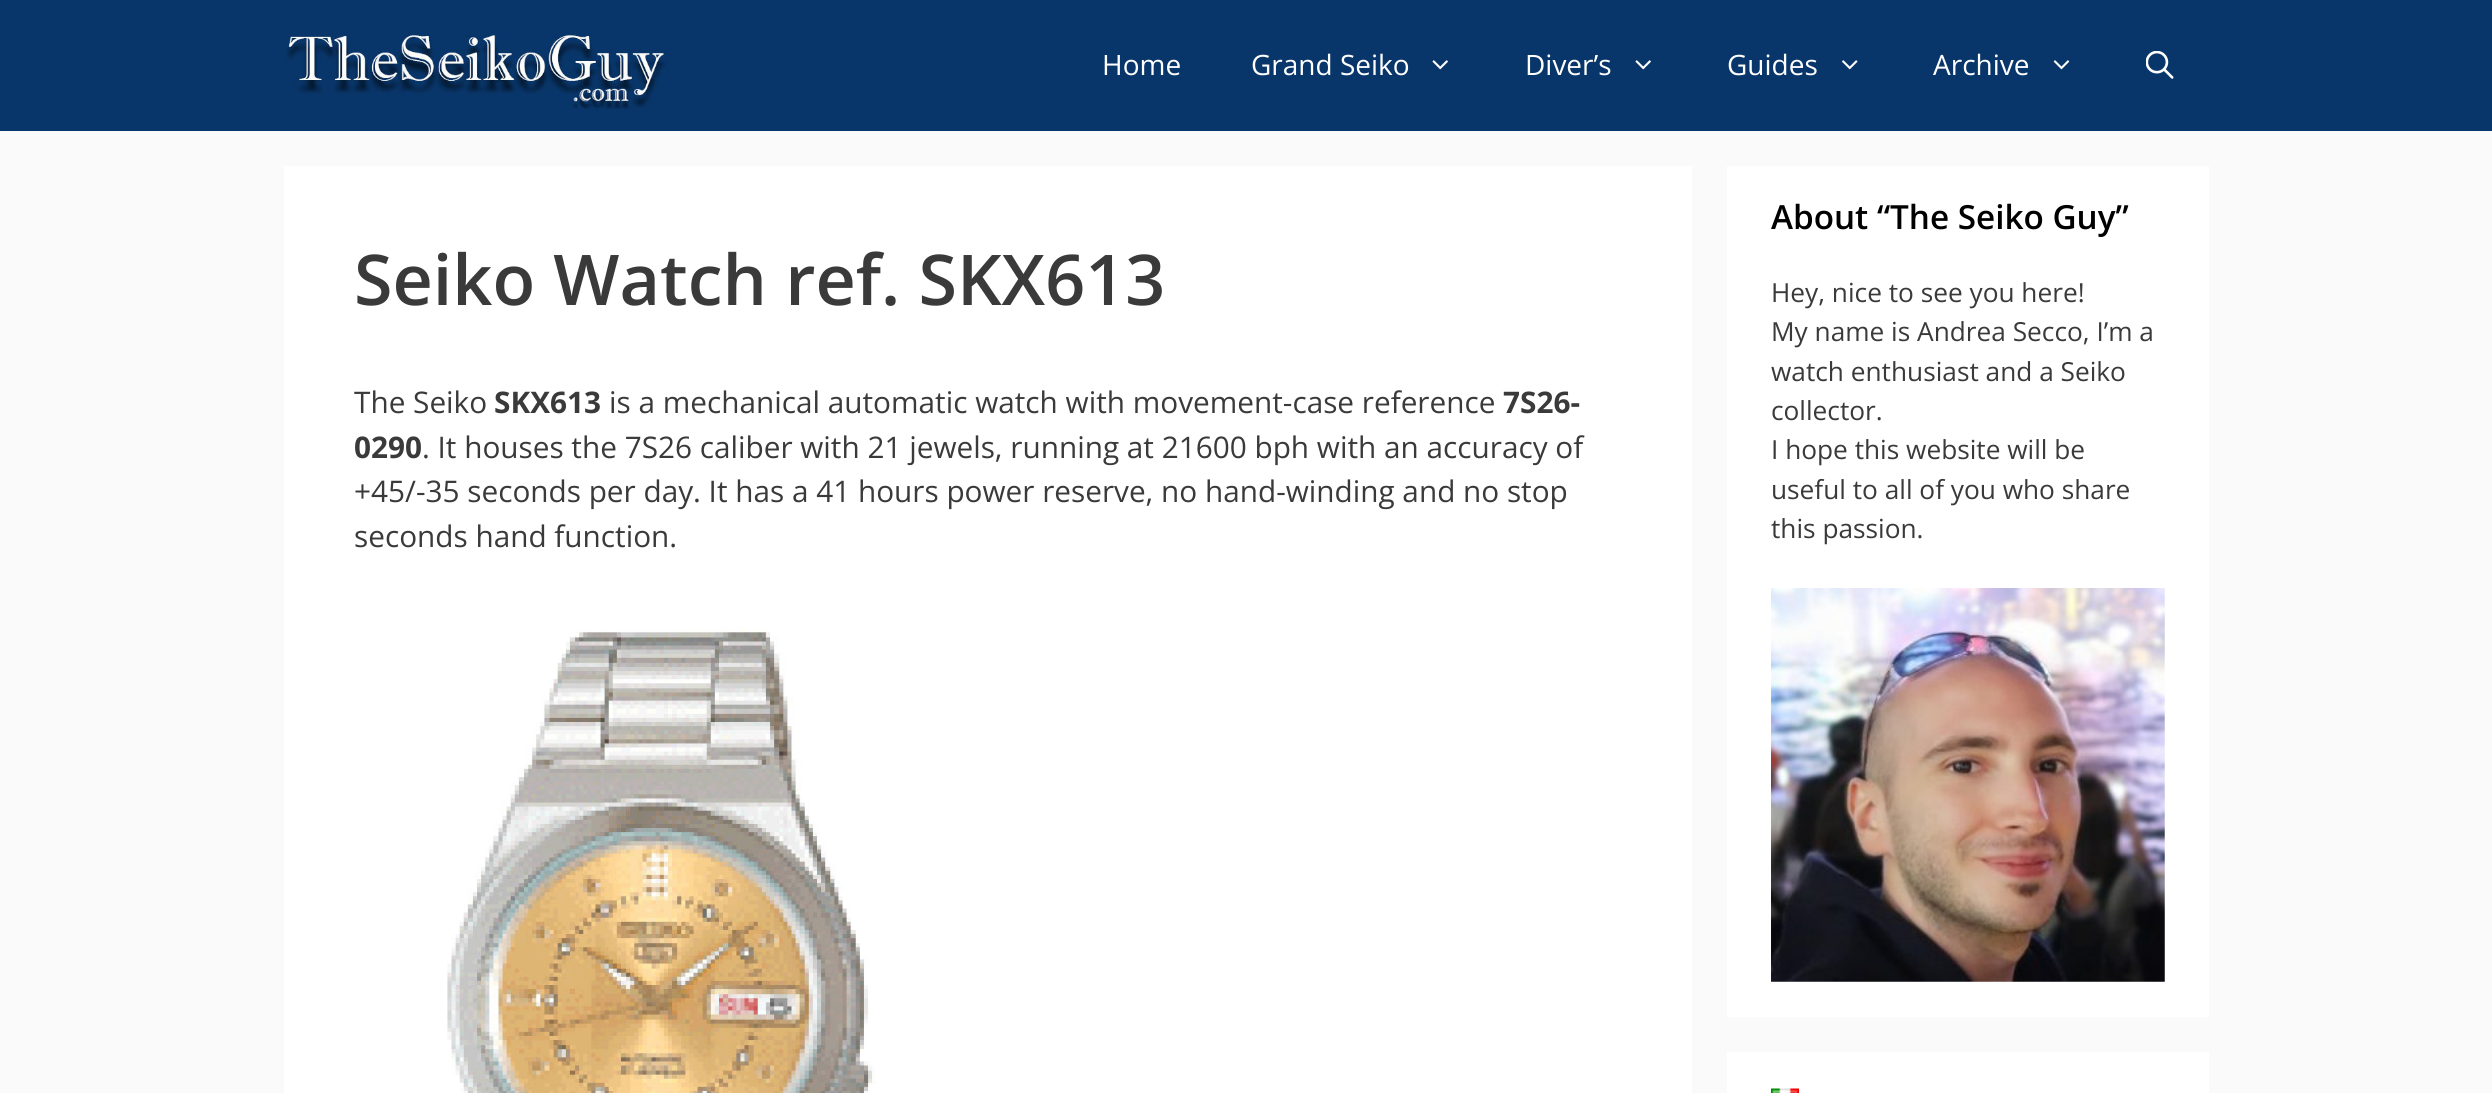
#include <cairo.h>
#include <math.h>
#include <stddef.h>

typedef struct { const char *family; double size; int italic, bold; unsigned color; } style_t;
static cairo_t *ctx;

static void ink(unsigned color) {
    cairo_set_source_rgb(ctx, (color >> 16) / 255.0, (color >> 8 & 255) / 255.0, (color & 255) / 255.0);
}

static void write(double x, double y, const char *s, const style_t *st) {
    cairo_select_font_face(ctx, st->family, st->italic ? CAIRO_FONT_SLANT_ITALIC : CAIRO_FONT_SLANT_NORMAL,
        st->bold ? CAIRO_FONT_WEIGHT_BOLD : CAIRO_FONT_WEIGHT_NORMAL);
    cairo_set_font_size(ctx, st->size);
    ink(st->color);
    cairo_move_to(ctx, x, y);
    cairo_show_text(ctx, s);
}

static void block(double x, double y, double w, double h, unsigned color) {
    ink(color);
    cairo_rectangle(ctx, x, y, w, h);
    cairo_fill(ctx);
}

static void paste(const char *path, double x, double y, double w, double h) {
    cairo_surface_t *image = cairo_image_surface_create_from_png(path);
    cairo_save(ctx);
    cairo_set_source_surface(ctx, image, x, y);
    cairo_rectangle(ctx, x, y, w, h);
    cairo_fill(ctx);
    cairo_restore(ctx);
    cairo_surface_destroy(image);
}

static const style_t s1 = {"Open Sans", 28, 0, 0, 0xffffff};
static const style_t s2 = {"Open Sans SemiBold", 70, 0, 0, 0x3a3a3a};
static const style_t s3 = {"Open Sans", 29.75, 0, 0, 0x3a3a3a};
static const style_t s4 = {"Open Sans", 29.75, 0, 1, 0x3a3a3a};
static const style_t s5 = {"Open Sans SemiBold", 33.25, 0, 0, 0x000000};
static const style_t s6 = {"Open Sans", 26.25, 0, 0, 0x3a3a3a};

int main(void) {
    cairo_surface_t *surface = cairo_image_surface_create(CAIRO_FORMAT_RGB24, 2492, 1093);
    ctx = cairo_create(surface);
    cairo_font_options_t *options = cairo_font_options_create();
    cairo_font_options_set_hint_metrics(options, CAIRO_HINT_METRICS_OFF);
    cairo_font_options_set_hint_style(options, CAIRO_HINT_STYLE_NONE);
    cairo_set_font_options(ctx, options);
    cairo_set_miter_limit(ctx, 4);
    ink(0xfafafa);
    cairo_paint(ctx);
    block(0, 0, 2492, 131, 0x09366a);
    paste("pic1.png", 286, 34, 381, 77);
    write(1102, 75, "Home", &s1);
    write(1251, 75, "Grand Seiko", &s1);
    paste("pic2.png", 1432, 60, 16, 10);
    write(1525, 75, "Diver’s", &s1);
    paste("pic2.png", 1635, 60, 16, 10);
    write(1727, 75, "Guides", &s1);
    paste("pic3.png", 1842, 60, 16, 10);
    write(1933, 75, "Archive", &s1);
    paste("pic4.png", 2053, 60, 17, 10);
    paste("pic5.png", 2146, 51, 28, 28);
    block(284, 166, 1408, 927, 0xffffff);
    write(354, 305, "Seiko Watch ref. SKX613", &s2);
    write(354, 413, "The Seiko", &s3);
    write(494, 413, "SKX613", &s4);
    write(609, 413, "is a mechanical automatic watch with movement-case reference", &s3);
    write(1503, 413, "7S26-", &s4);
    write(354, 458, "0290", &s4);
    write(422, 458, ". It houses the 7S26 caliber with 21 jewels, running at 21600 bph with an accuracy of", &s3);
    write(354, 502, "+45/-35 seconds per day. It has a 41 hours power reserve, no hand-winding and no stop", &s3);
    write(354, 547, "seconds hand function.", &s3);
    paste("pic6.png", 447, 628, 429, 465);
    block(1727, 166, 482, 851, 0xffffff);
    write(1771, 229, "About “The Seiko Guy”", &s5);
    write(1771, 302, "Hey, nice to see you here!", &s6);
    write(1771, 341, "My name is Andrea Secco, I’m a", &s6);
    write(1771, 381, "watch enthusiast and a Seiko", &s6);
    write(1771, 420, "collector.", &s6);
    write(1771, 459, "I hope this website will be", &s6);
    write(1771, 499, "useful to all of you who share", &s6);
    write(1771, 538, "this passion.", &s6);
    paste("pic7.png", 1771, 588, 394, 394);
    block(1727, 1052, 482, 41, 0xffffff);
    paste("pic8.png", 1771, 1088, 28, 5);
    cairo_surface_write_to_png(surface, "screenshot.png");
    cairo_font_options_destroy(options);
    cairo_destroy(ctx);
    cairo_surface_destroy(surface);
    return 0;
}
